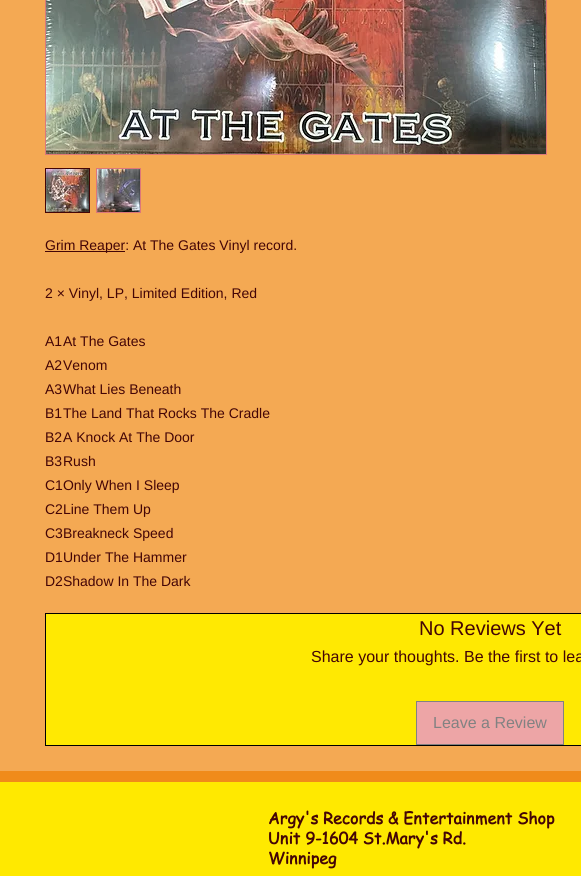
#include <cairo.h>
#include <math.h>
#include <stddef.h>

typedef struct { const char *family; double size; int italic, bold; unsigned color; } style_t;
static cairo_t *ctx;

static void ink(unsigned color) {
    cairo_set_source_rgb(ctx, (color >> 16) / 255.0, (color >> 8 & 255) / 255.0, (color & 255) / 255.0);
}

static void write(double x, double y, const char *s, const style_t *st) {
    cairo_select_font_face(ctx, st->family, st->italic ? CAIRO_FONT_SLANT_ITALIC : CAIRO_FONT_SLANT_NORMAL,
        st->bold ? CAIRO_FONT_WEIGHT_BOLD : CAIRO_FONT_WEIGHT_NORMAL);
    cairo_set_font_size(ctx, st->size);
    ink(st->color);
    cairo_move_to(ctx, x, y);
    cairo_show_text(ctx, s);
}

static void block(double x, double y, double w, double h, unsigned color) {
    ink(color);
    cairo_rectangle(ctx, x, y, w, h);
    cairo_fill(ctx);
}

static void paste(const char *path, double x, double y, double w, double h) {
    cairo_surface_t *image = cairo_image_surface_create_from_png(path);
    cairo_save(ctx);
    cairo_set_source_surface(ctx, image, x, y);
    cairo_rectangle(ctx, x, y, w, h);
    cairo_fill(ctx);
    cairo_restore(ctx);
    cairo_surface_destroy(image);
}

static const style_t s1 = {"Liberation Sans", 14, 0, 0, 0x440506};
static const style_t s2 = {"Liberation Sans", 20, 0, 0, 0x440506};
static const style_t s3 = {"Liberation Sans", 16, 0, 0, 0x440506};
static const style_t s4 = {"Liberation Sans", 16, 0, 0, 0x828282};
static const style_t s5 = {"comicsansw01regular", 16, 0, 1, 0x440506};

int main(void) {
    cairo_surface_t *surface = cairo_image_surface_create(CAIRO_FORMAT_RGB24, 581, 876);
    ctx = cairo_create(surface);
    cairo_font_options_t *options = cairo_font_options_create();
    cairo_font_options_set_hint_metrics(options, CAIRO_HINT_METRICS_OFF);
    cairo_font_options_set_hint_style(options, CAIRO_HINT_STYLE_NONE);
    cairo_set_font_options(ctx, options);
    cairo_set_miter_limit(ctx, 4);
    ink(0xffe900);
    cairo_paint(ctx);
    block(0, 0, 581, 771, 0xf4a953);
    cairo_rectangle(ctx, 45.5, -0.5, 501, 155);
    ink(0xdd7779);
    cairo_set_line_width(ctx, 1);
    cairo_stroke(ctx);
    paste("pic1.png", 46, 0, 500, 154);
    cairo_rectangle(ctx, 45.5, 168.5, 44, 44);
    ink(0x440506);
    cairo_stroke(ctx);
    paste("pic2.png", 46, 169, 43, 43);
    cairo_rectangle(ctx, 96.5, 168.5, 44, 44);
    ink(0xdd7779);
    cairo_stroke(ctx);
    paste("pic3.png", 97, 169, 43, 43);
    block(45, 251, 80, 1, 0x440506);
    write(45, 250, "Grim Reaper: At The Gates Vinyl record.", &s1);
    write(45, 298, "2 × Vinyl, LP, Limited Edition, Red", &s1);
    write(45, 346, "A1", &s1);
    write(63, 346, "At The Gates", &s1);
    write(45, 370, "A2", &s1);
    write(63, 370, "Venom", &s1);
    write(45, 394, "A3", &s1);
    write(63, 394, "What Lies Beneath", &s1);
    write(45, 418, "B1", &s1);
    write(63, 418, "The Land That Rocks The Cradle", &s1);
    write(45, 442, "B2", &s1);
    write(63, 442, "A Knock At The Door", &s1);
    write(45, 466, "B3", &s1);
    write(63, 466, "Rush", &s1);
    write(45, 490, "C1Only When I Sleep", &s1);
    write(45, 514, "C2Line Them Up", &s1);
    write(45, 538, "C3Breakneck Speed", &s1);
    write(45, 562, "D1Under The Hammer", &s1);
    write(45, 586, "D2Shadow In The Dark", &s1);
    ink(0xffe902);
    cairo_rectangle(ctx, 45.5, 613.5, 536, 132);
    cairo_fill_preserve(ctx);
    ink(0x000000);
    cairo_stroke(ctx);
    write(419, 635, "No Reviews Yet", &s2);
    write(311, 662, "Share your thoughts. Be the first to lea", &s3);
    ink(0xeda5a6);
    cairo_rectangle(ctx, 416.5, 701.5, 147, 43);
    cairo_fill_preserve(ctx);
    ink(0x828282);
    cairo_stroke(ctx);
    write(433, 728, "Leave a Review", &s4);
    block(0, 771, 581, 11, 0xf08b1a);
    write(268, 824, "Argy's Records & Entertainment Shop", &s5);
    write(268, 844, "Unit 9-1604 St.Mary's Rd.", &s5);
    write(268, 864, "Winnipeg", &s5);
    cairo_surface_write_to_png(surface, "screenshot.png");
    cairo_font_options_destroy(options);
    cairo_destroy(ctx);
    cairo_surface_destroy(surface);
    return 0;
}
